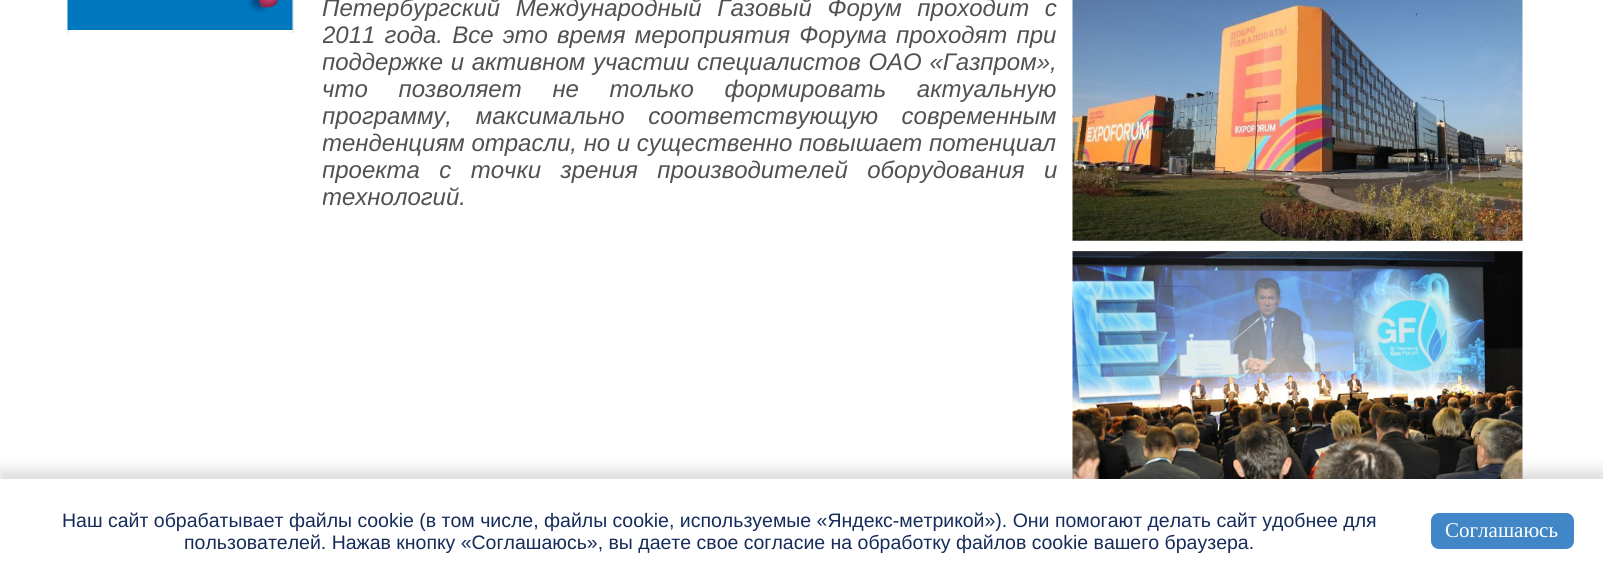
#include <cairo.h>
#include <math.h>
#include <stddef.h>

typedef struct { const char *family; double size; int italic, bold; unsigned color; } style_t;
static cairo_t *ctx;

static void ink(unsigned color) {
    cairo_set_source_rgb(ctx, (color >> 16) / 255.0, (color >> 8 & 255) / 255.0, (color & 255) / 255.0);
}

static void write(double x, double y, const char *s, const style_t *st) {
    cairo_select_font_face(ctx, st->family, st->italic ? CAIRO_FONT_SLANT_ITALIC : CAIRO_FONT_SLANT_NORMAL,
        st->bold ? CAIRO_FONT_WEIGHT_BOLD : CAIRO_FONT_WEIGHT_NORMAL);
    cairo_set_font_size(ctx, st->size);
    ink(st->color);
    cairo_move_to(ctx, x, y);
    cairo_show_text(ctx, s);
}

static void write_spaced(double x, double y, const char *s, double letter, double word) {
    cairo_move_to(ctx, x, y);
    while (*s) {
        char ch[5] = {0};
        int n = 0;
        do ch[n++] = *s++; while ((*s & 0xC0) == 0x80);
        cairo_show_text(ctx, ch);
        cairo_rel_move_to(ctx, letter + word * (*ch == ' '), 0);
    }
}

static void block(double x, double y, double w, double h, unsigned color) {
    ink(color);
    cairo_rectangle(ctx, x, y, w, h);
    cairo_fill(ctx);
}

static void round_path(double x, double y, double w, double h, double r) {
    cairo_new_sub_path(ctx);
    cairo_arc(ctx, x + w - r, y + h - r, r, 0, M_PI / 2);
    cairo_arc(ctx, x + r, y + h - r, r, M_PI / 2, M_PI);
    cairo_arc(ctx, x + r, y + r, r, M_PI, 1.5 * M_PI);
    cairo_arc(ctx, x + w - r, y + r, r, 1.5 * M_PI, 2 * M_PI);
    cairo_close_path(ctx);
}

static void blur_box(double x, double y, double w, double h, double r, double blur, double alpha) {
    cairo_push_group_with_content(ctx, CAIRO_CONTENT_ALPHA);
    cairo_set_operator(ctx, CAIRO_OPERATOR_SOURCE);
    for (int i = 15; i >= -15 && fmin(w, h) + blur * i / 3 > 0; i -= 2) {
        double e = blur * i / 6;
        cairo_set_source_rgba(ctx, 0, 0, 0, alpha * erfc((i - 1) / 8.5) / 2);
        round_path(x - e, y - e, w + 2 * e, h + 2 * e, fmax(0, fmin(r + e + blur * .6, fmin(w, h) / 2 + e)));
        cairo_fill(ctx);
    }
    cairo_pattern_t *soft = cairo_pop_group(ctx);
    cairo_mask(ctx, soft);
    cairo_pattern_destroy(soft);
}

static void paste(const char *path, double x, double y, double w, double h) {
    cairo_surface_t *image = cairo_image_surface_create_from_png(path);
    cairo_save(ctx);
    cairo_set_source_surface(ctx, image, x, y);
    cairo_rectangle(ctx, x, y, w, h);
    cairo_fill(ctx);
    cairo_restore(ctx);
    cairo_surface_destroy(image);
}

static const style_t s1 = {"Liberation Sans", 24, 1, 0, 0x515151};
static const style_t s2 = {"Liberation Sans", 19.5, 0, 0, 0x152c5b};
static const style_t s3 = {"Liberation Serif", 21, 0, 0, 0xffffff};

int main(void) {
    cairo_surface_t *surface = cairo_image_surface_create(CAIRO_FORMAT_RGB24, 1603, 583);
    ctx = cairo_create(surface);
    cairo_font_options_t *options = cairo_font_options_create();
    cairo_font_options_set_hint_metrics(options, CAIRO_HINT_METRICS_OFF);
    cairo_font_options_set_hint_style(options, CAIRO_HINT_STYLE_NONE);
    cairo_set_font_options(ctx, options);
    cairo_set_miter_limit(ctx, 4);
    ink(0xffffff);
    cairo_paint(ctx);
    paste("pic1.png", 67, 0, 227, 33);
    paste("pic2.png", 67, 0, 226, 30);
    cairo_select_font_face(ctx, "Liberation Sans", CAIRO_FONT_SLANT_ITALIC, CAIRO_FONT_WEIGHT_NORMAL);
    cairo_set_font_size(ctx, 24);
    ink(0x515151);
    write_spaced(322, 16, "Петербургский Международный Газовый Форум проходит с", 0, 9);
    cairo_save(ctx);
    cairo_rectangle(ctx, 323, 0, 1230, 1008);
    cairo_clip(ctx);
    write_spaced(322, 43, "2011 года. Все это время мероприятия Форума проходят при", 0, 2.5);
    write_spaced(322, 70, "поддержке и активном участии специалистов ОАО «Газпром»,", 0, 1);
    cairo_restore(ctx);
    write_spaced(322, 97, "что позволяет не только формировать актуальную", 0, 24);
    cairo_save(ctx);
    cairo_rectangle(ctx, 323, 0, 1230, 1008);
    cairo_clip(ctx);
    write_spaced(322, 124, "программу, максимально соответствующую современным", 0, 17);
    write(322, 151, "тенденциям отрасли, но и существенно повышает потенциал", &s1);
    write_spaced(322, 178, "проекта с точки зрения производителей оборудования и", 0, 12.75);
    write(322, 205, "технологий.", &s1);
    cairo_restore(ctx);
    paste("pic3.png", 1072, 0, 451, 479);
    ink(0x000000);
    blur_box(0, 471, 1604, 105, 0, 7.5, 0.15);
    block(0, 479, 1603, 104, 0xffffff);
    write(62, 527, "Наш сайт обрабатывает файлы cookie (в том числе, файлы cookie, используемые «Яндекс-метрикой»). Они помогают делать сайт удобнее для", &s2);
    write(184, 549, "пользователей. Нажав кнопку «Соглашаюсь», вы даете свое согласие на обработку файлов cookie вашего браузера.", &s2);
    ink(0x4187c7);
    round_path(1431, 513, 143, 36, 8);
    cairo_fill(ctx);
    write(1445, 537, "Соглашаюсь", &s3);
    cairo_surface_write_to_png(surface, "screenshot.png");
    cairo_font_options_destroy(options);
    cairo_destroy(ctx);
    cairo_surface_destroy(surface);
    return 0;
}
